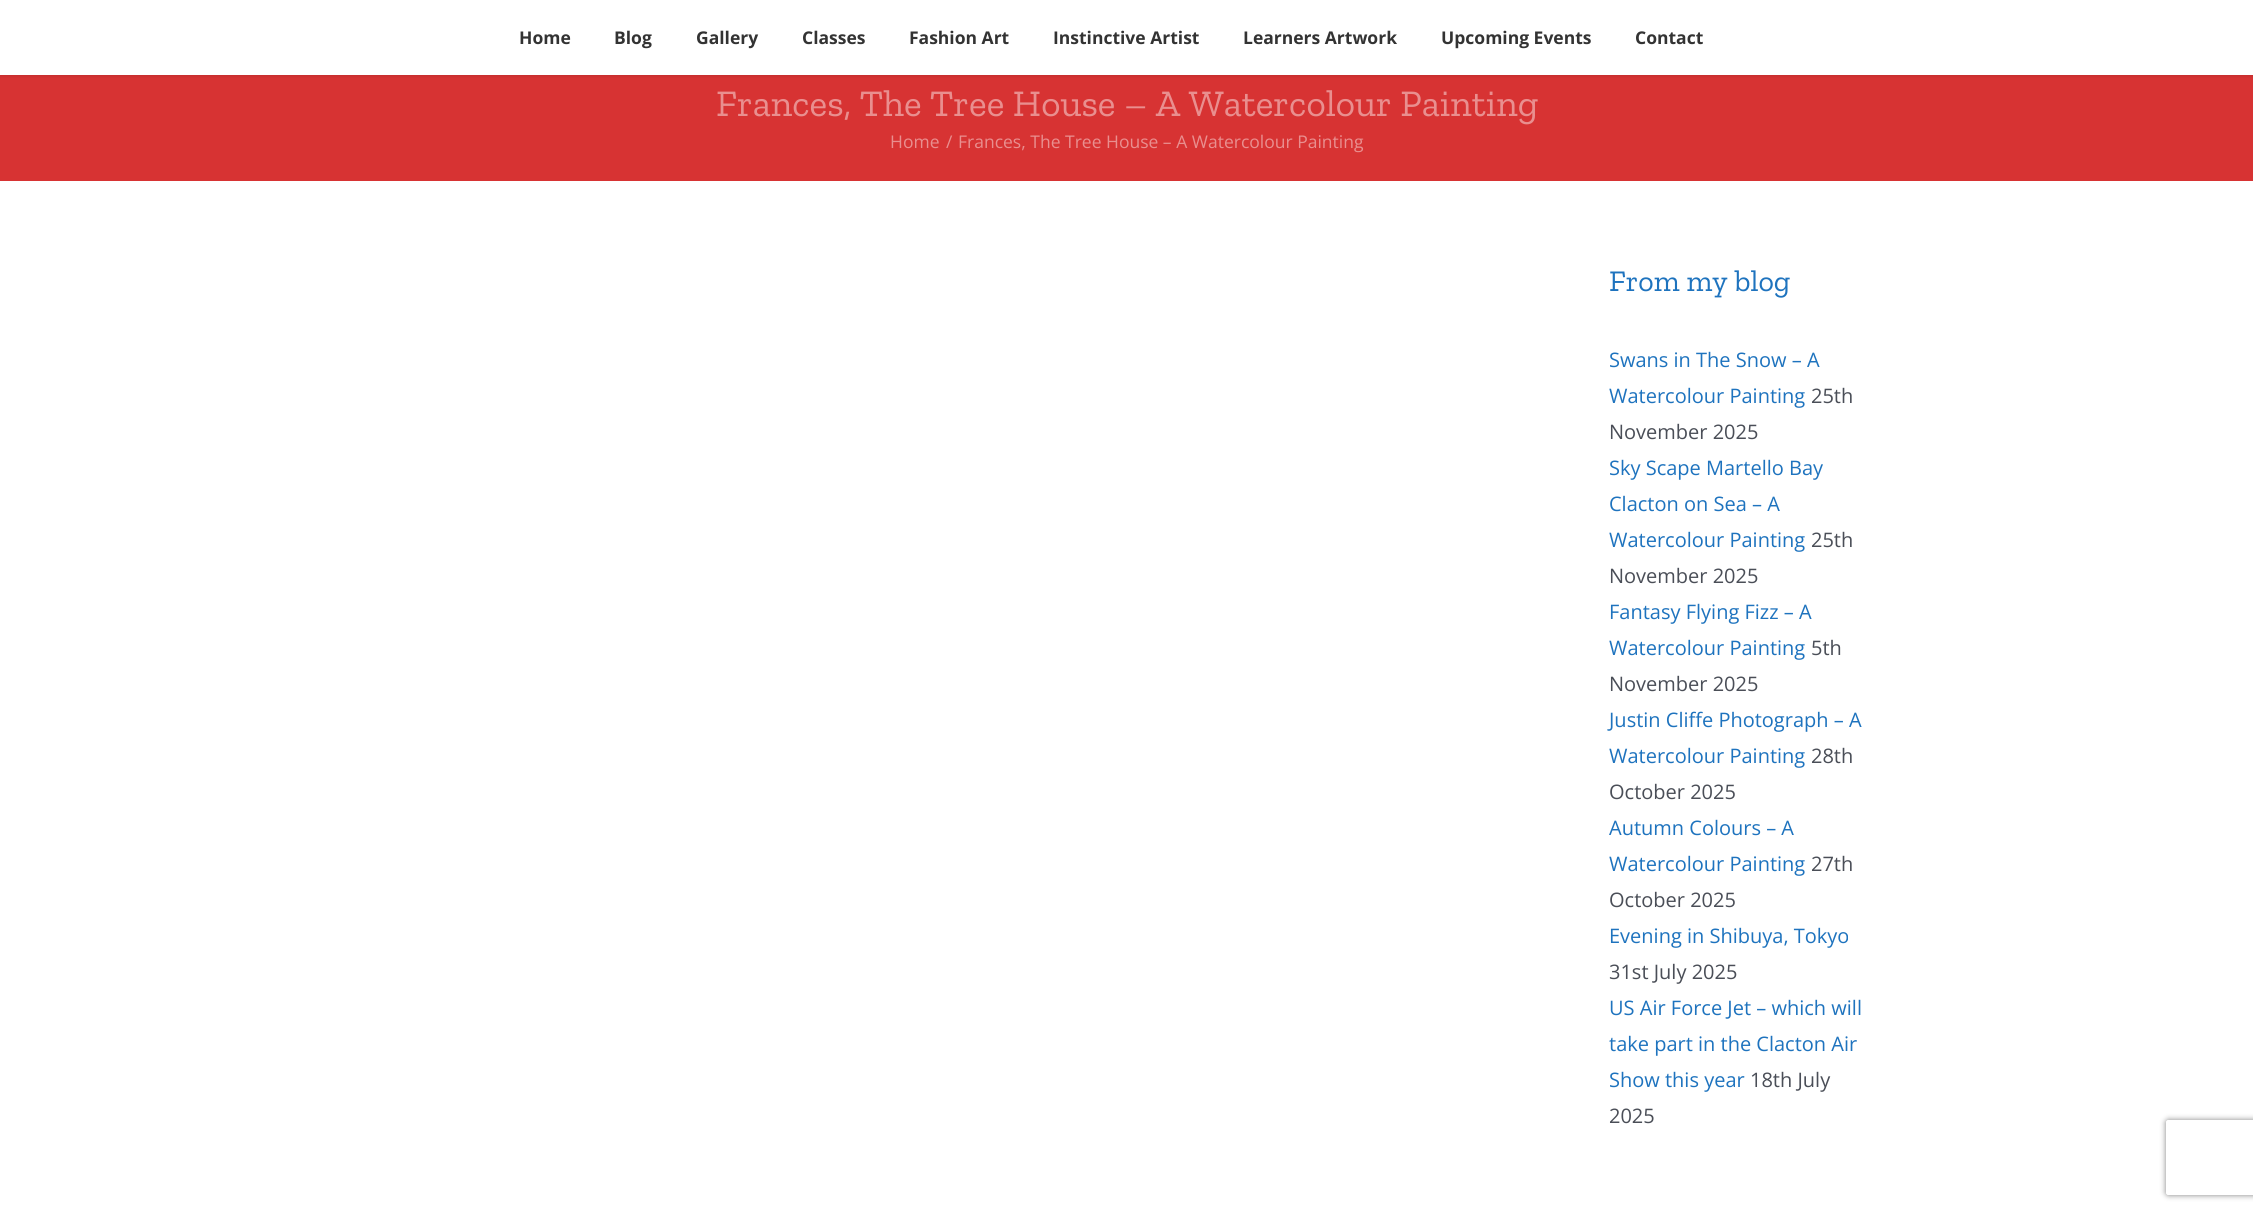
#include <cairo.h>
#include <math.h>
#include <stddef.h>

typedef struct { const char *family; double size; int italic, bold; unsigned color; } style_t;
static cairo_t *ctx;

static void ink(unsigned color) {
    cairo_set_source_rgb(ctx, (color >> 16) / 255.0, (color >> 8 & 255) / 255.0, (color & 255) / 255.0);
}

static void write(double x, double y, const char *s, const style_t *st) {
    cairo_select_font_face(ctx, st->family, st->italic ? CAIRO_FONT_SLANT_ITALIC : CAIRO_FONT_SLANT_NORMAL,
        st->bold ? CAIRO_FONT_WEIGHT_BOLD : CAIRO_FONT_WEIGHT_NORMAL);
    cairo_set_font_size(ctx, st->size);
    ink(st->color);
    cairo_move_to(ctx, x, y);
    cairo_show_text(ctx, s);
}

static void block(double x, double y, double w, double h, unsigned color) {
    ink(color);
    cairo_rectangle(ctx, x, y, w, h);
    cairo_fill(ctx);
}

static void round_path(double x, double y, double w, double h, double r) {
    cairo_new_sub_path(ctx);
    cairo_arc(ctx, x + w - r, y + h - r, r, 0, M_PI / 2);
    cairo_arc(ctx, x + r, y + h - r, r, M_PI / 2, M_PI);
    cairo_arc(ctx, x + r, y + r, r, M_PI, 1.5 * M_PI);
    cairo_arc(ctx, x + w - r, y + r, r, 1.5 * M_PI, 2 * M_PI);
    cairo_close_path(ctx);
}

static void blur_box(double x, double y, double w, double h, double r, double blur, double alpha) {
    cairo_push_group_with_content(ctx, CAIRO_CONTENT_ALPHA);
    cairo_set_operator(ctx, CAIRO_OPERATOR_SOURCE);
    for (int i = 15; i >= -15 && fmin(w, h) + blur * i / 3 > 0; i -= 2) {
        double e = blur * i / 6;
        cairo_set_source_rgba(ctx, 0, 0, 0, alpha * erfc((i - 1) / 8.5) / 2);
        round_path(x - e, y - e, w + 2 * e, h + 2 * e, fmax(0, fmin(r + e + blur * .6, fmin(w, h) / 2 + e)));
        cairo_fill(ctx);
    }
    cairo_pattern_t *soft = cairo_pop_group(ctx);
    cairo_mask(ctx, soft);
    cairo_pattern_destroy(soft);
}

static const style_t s1 = {"Open Sans", 17.5, 0, 1, 0x333333};
static const style_t s2 = {"Zilla Slab", 37.5, 0, 0, 0xe98f8f};
static const style_t s3 = {"Open Sans", 17.5, 0, 0, 0xe98f8f};
static const style_t s4 = {"Zilla Slab", 30, 0, 0, 0x1e73be};
static const style_t s5 = {"Open Sans", 20, 0, 0, 0x1e73be};
static const style_t s6 = {"Open Sans", 20, 0, 0, 0x4a4e57};

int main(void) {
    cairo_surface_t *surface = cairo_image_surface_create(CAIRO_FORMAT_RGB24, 2253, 1212);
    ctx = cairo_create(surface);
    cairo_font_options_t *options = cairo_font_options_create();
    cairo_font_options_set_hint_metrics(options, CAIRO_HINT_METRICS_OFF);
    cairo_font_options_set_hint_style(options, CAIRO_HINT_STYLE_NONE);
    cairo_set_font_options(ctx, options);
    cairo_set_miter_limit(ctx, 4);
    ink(0xffffff);
    cairo_paint(ctx);
    block(0, 75, 2253, 106, 0xd73333);
    ink(0x000000);
    blur_box(0, 1, 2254, 75, 0, 2, 0.12);
    block(0, 0, 2253, 75, 0xffffff);
    write(519, 44, "Home", &s1);
    write(614, 44, "Blog", &s1);
    write(696, 44, "Gallery", &s1);
    write(802, 44, "Classes", &s1);
    write(909, 44, "Fashion Art", &s1);
    write(1053, 44, "Instinctive Artist", &s1);
    write(1243, 44, "Learners Artwork", &s1);
    write(1441, 44, "Upcoming Events", &s1);
    write(1635, 44, "Contact", &s1);
    write(716, 116, "Frances, The Tree House – A Watercolour Painting", &s2);
    write(890, 148, "Home", &s3);
    write(946, 148, "/", &s3);
    write(958, 148, "Frances, The Tree House – A Watercolour Painting", &s3);
    write(1609, 291, "From my blog", &s4);
    write(1609, 367, "Swans in The Snow – A", &s5);
    write(1609, 403, "Watercolour Painting", &s5);
    write(1811, 403, "25th", &s6);
    write(1609, 439, "November 2025", &s6);
    write(1609, 475, "Sky Scape Martello Bay", &s5);
    write(1609, 511, "Clacton on Sea – A", &s5);
    write(1609, 547, "Watercolour Painting", &s5);
    write(1811, 547, "25th", &s6);
    write(1609, 583, "November 2025", &s6);
    write(1609, 619, "Fantasy Flying Fizz – A", &s5);
    write(1609, 655, "Watercolour Painting", &s5);
    write(1811, 655, "5th", &s6);
    write(1609, 691, "November 2025", &s6);
    write(1609, 727, "Justin Cliffe Photograph – A", &s5);
    write(1609, 763, "Watercolour Painting", &s5);
    write(1811, 763, "28th", &s6);
    write(1609, 799, "October 2025", &s6);
    write(1609, 835, "Autumn Colours – A", &s5);
    write(1609, 871, "Watercolour Painting", &s5);
    write(1811, 871, "27th", &s6);
    write(1609, 907, "October 2025", &s6);
    write(1609, 943, "Evening in Shibuya, Tokyo", &s5);
    write(1609, 979, "31st July 2025", &s6);
    write(1609, 1015, "US Air Force Jet – which will", &s5);
    write(1609, 1051, "take part in the Clacton Air", &s5);
    write(1609, 1087, "Show this year", &s5);
    write(1750, 1087, "18th July", &s6);
    write(1609, 1123, "2025", &s6);
    cairo_save(ctx);
    cairo_set_fill_rule(ctx, CAIRO_FILL_RULE_EVEN_ODD);
    cairo_new_path(ctx);
    cairo_move_to(ctx, 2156, 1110);
    cairo_line_to(ctx, 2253, 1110);
    cairo_line_to(ctx, 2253, 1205);
    cairo_line_to(ctx, 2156, 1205);
    cairo_close_path(ctx);
    cairo_move_to(ctx, 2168.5, 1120);
    cairo_line_to(ctx, 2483.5, 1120);
    cairo_curve_to(ctx, 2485, 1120, 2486, 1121, 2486, 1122.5);
    cairo_line_to(ctx, 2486, 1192.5);
    cairo_curve_to(ctx, 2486, 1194, 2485, 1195, 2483.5, 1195);
    cairo_line_to(ctx, 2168.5, 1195);
    cairo_curve_to(ctx, 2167, 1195, 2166, 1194, 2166, 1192.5);
    cairo_line_to(ctx, 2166, 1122.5);
    cairo_curve_to(ctx, 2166, 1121, 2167, 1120, 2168.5, 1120);
    cairo_close_path(ctx);
    cairo_clip(ctx);
    ink(0x808080);
    blur_box(2166, 1120, 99, 75, 2.5, 3, 1);
    cairo_restore(ctx);
    cairo_surface_write_to_png(surface, "screenshot.png");
    cairo_font_options_destroy(options);
    cairo_destroy(ctx);
    cairo_surface_destroy(surface);
    return 0;
}
